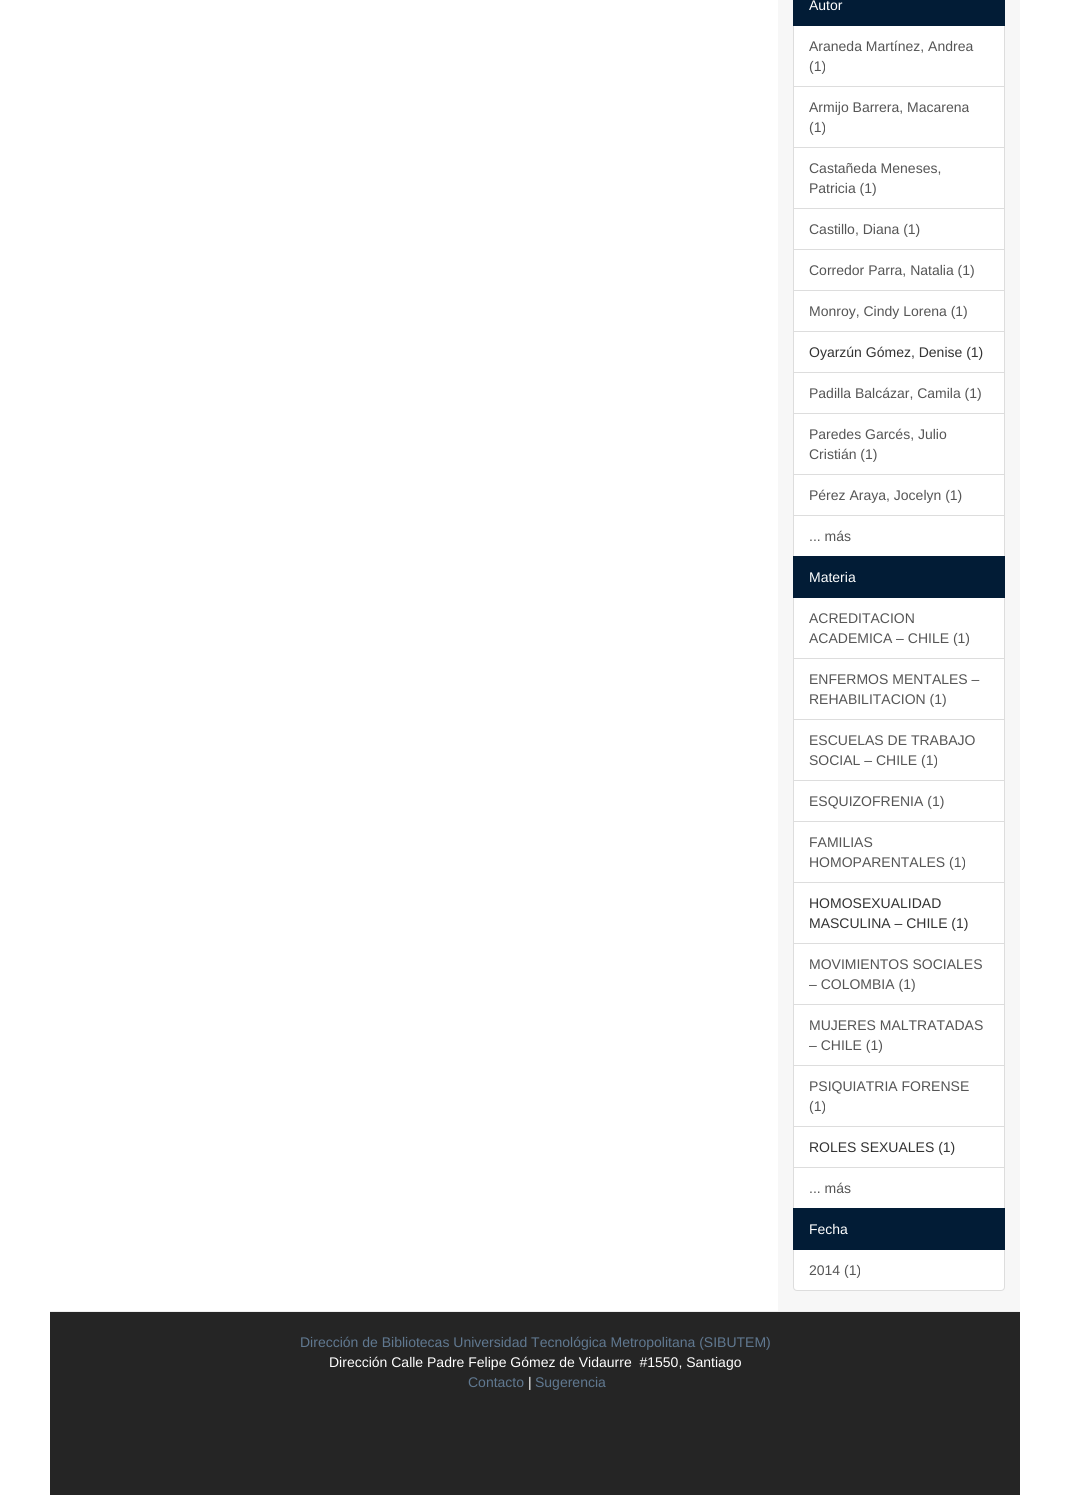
#include <cairo.h>
#include <math.h>
#include <stddef.h>

typedef struct { const char *family; double size; int italic, bold; unsigned color; } style_t;
static cairo_t *ctx;

static void ink(unsigned color) {
    cairo_set_source_rgb(ctx, (color >> 16) / 255.0, (color >> 8 & 255) / 255.0, (color & 255) / 255.0);
}

static void write(double x, double y, const char *s, const style_t *st) {
    cairo_select_font_face(ctx, st->family, st->italic ? CAIRO_FONT_SLANT_ITALIC : CAIRO_FONT_SLANT_NORMAL,
        st->bold ? CAIRO_FONT_WEIGHT_BOLD : CAIRO_FONT_WEIGHT_NORMAL);
    cairo_set_font_size(ctx, st->size);
    ink(st->color);
    cairo_move_to(ctx, x, y);
    cairo_show_text(ctx, s);
}

static void block(double x, double y, double w, double h, unsigned color) {
    ink(color);
    cairo_rectangle(ctx, x, y, w, h);
    cairo_fill(ctx);
}

static const style_t s1 = {"Liberation Sans", 14, 0, 0, 0xffffff};
static const style_t s2 = {"Liberation Sans", 14, 0, 0, 0x555555};
static const style_t s3 = {"Liberation Sans", 14, 0, 0, 0x333333};
static const style_t s4 = {"Liberation Sans", 14, 0, 0, 0x607890};

int main(void) {
    cairo_surface_t *surface = cairo_image_surface_create(CAIRO_FORMAT_RGB24, 1070, 1495);
    ctx = cairo_create(surface);
    cairo_font_options_t *options = cairo_font_options_create();
    cairo_font_options_set_hint_metrics(options, CAIRO_HINT_METRICS_OFF);
    cairo_font_options_set_hint_style(options, CAIRO_HINT_STYLE_NONE);
    cairo_set_font_options(ctx, options);
    cairo_set_miter_limit(ctx, 4);
    ink(0xffffff);
    cairo_paint(ctx);
    block(778, 0, 242, 1311, 0xf7f7f7);
    ink(0xffffff);
    cairo_rectangle(ctx, 793.5, 25.5, 211, 61);
    cairo_fill_preserve(ctx);
    ink(0xdddddd);
    cairo_set_line_width(ctx, 1);
    cairo_stroke(ctx);
    block(793, 0, 212, 26, 0x021c36);
    write(809, 10, "Autor", &s1);
    write(809, 51, "Araneda Martínez, Andrea", &s2);
    write(809, 71, "(1)", &s2);
    ink(0xffffff);
    cairo_rectangle(ctx, 793.5, 86.5, 211, 61);
    cairo_fill_preserve(ctx);
    ink(0xdddddd);
    cairo_stroke(ctx);
    write(809, 112, "Armijo Barrera, Macarena", &s2);
    write(809, 132, "(1)", &s2);
    ink(0xffffff);
    cairo_rectangle(ctx, 793.5, 147.5, 211, 61);
    cairo_fill_preserve(ctx);
    ink(0xdddddd);
    cairo_stroke(ctx);
    write(809, 173, "Castañeda Meneses,", &s2);
    write(809, 193, "Patricia (1)", &s2);
    ink(0xffffff);
    cairo_rectangle(ctx, 793.5, 208.5, 211, 41);
    cairo_fill_preserve(ctx);
    ink(0xdddddd);
    cairo_stroke(ctx);
    write(809, 234, "Castillo, Diana (1)", &s2);
    ink(0xffffff);
    cairo_rectangle(ctx, 793.5, 249.5, 211, 41);
    cairo_fill_preserve(ctx);
    ink(0xdddddd);
    cairo_stroke(ctx);
    write(809, 275, "Corredor Parra, Natalia (1)", &s2);
    ink(0xffffff);
    cairo_rectangle(ctx, 793.5, 290.5, 211, 41);
    cairo_fill_preserve(ctx);
    ink(0xdddddd);
    cairo_stroke(ctx);
    write(809, 316, "Monroy, Cindy Lorena (1)", &s2);
    ink(0xffffff);
    cairo_rectangle(ctx, 793.5, 331.5, 211, 41);
    cairo_fill_preserve(ctx);
    ink(0xdddddd);
    cairo_stroke(ctx);
    write(809, 357, "Oyarzún Gómez, Denise (1)", &s3);
    ink(0xffffff);
    cairo_rectangle(ctx, 793.5, 372.5, 211, 41);
    cairo_fill_preserve(ctx);
    ink(0xdddddd);
    cairo_stroke(ctx);
    write(809, 398, "Padilla Balcázar, Camila (1)", &s2);
    ink(0xffffff);
    cairo_rectangle(ctx, 793.5, 413.5, 211, 61);
    cairo_fill_preserve(ctx);
    ink(0xdddddd);
    cairo_stroke(ctx);
    write(809, 439, "Paredes Garcés, Julio", &s2);
    write(809, 459, "Cristián (1)", &s2);
    ink(0xffffff);
    cairo_rectangle(ctx, 793.5, 474.5, 211, 41);
    cairo_fill_preserve(ctx);
    ink(0xdddddd);
    cairo_stroke(ctx);
    write(809, 500, "Pérez Araya, Jocelyn (1)", &s2);
    ink(0xffffff);
    cairo_rectangle(ctx, 793.5, 515.5, 211, 41);
    cairo_fill_preserve(ctx);
    ink(0xdddddd);
    cairo_stroke(ctx);
    write(809, 541, "... más", &s2);
    ink(0xffffff);
    cairo_rectangle(ctx, 793.5, 597.5, 211, 61);
    cairo_fill_preserve(ctx);
    ink(0xdddddd);
    cairo_stroke(ctx);
    block(793, 556, 212, 42, 0x021c36);
    write(809, 582, "Materia", &s1);
    write(809, 623, "ACREDITACION", &s2);
    write(809, 643, "ACADEMICA – CHILE (1)", &s2);
    ink(0xffffff);
    cairo_rectangle(ctx, 793.5, 658.5, 211, 61);
    cairo_fill_preserve(ctx);
    ink(0xdddddd);
    cairo_stroke(ctx);
    write(809, 684, "ENFERMOS MENTALES –", &s2);
    write(809, 704, "REHABILITACION (1)", &s2);
    ink(0xffffff);
    cairo_rectangle(ctx, 793.5, 719.5, 211, 61);
    cairo_fill_preserve(ctx);
    ink(0xdddddd);
    cairo_stroke(ctx);
    write(809, 745, "ESCUELAS DE TRABAJO", &s2);
    write(809, 765, "SOCIAL – CHILE (1)", &s2);
    ink(0xffffff);
    cairo_rectangle(ctx, 793.5, 780.5, 211, 41);
    cairo_fill_preserve(ctx);
    ink(0xdddddd);
    cairo_stroke(ctx);
    write(809, 806, "ESQUIZOFRENIA (1)", &s2);
    ink(0xffffff);
    cairo_rectangle(ctx, 793.5, 821.5, 211, 61);
    cairo_fill_preserve(ctx);
    ink(0xdddddd);
    cairo_stroke(ctx);
    write(809, 847, "FAMILIAS", &s2);
    write(809, 867, "HOMOPARENTALES (1)", &s2);
    ink(0xffffff);
    cairo_rectangle(ctx, 793.5, 882.5, 211, 61);
    cairo_fill_preserve(ctx);
    ink(0xdddddd);
    cairo_stroke(ctx);
    write(809, 908, "HOMOSEXUALIDAD", &s3);
    write(809, 928, "MASCULINA – CHILE (1)", &s3);
    ink(0xffffff);
    cairo_rectangle(ctx, 793.5, 943.5, 211, 61);
    cairo_fill_preserve(ctx);
    ink(0xdddddd);
    cairo_stroke(ctx);
    write(809, 969, "MOVIMIENTOS SOCIALES", &s2);
    write(809, 989, "– COLOMBIA (1)", &s2);
    ink(0xffffff);
    cairo_rectangle(ctx, 793.5, 1004.5, 211, 61);
    cairo_fill_preserve(ctx);
    ink(0xdddddd);
    cairo_stroke(ctx);
    write(809, 1030, "MUJERES MALTRATADAS", &s2);
    write(809, 1050, "– CHILE (1)", &s2);
    ink(0xffffff);
    cairo_rectangle(ctx, 793.5, 1065.5, 211, 61);
    cairo_fill_preserve(ctx);
    ink(0xdddddd);
    cairo_stroke(ctx);
    write(809, 1091, "PSIQUIATRIA FORENSE", &s2);
    write(809, 1111, "(1)", &s2);
    ink(0xffffff);
    cairo_rectangle(ctx, 793.5, 1126.5, 211, 41);
    cairo_fill_preserve(ctx);
    ink(0xdddddd);
    cairo_stroke(ctx);
    write(809, 1152, "ROLES SEXUALES (1)", &s3);
    ink(0xffffff);
    cairo_rectangle(ctx, 793.5, 1167.5, 211, 41);
    cairo_fill_preserve(ctx);
    ink(0xdddddd);
    cairo_stroke(ctx);
    write(809, 1193, "... más", &s2);
    ink(0xffffff);
    cairo_new_path(ctx);
    cairo_move_to(ctx, 793.5, 1249.5);
    cairo_line_to(ctx, 1004.5, 1249.5);
    cairo_line_to(ctx, 1004.5, 1287);
    cairo_curve_to(ctx, 1004.5, 1289, 1003, 1290.5, 1001, 1290.5);
    cairo_line_to(ctx, 797, 1290.5);
    cairo_curve_to(ctx, 795, 1290.5, 793.5, 1289, 793.5, 1287);
    cairo_close_path(ctx);
    cairo_fill_preserve(ctx);
    ink(0xdddddd);
    cairo_stroke(ctx);
    block(793, 1208, 212, 42, 0x021c36);
    write(809, 1234, "Fecha", &s1);
    write(809, 1275, "2014 (1)", &s2);
    block(50, 1312, 970, 183, 0x252525);
    block(50, 1311, 970, 1, 0xeeeeee);
    write(300, 1347, "Dirección de Bibliotecas Universidad Tecnológica Metropolitana (SIBUTEM)", &s4);
    write(329, 1367, "Dirección Calle Padre Felipe Gómez de Vidaurre  #1550, Santiago", &s1);
    write(468, 1387, "Contacto", &s4);
    write(528, 1387, "|", &s1);
    write(535, 1387, "Sugerencia", &s4);
    cairo_surface_write_to_png(surface, "screenshot.png");
    cairo_font_options_destroy(options);
    cairo_destroy(ctx);
    cairo_surface_destroy(surface);
    return 0;
}
